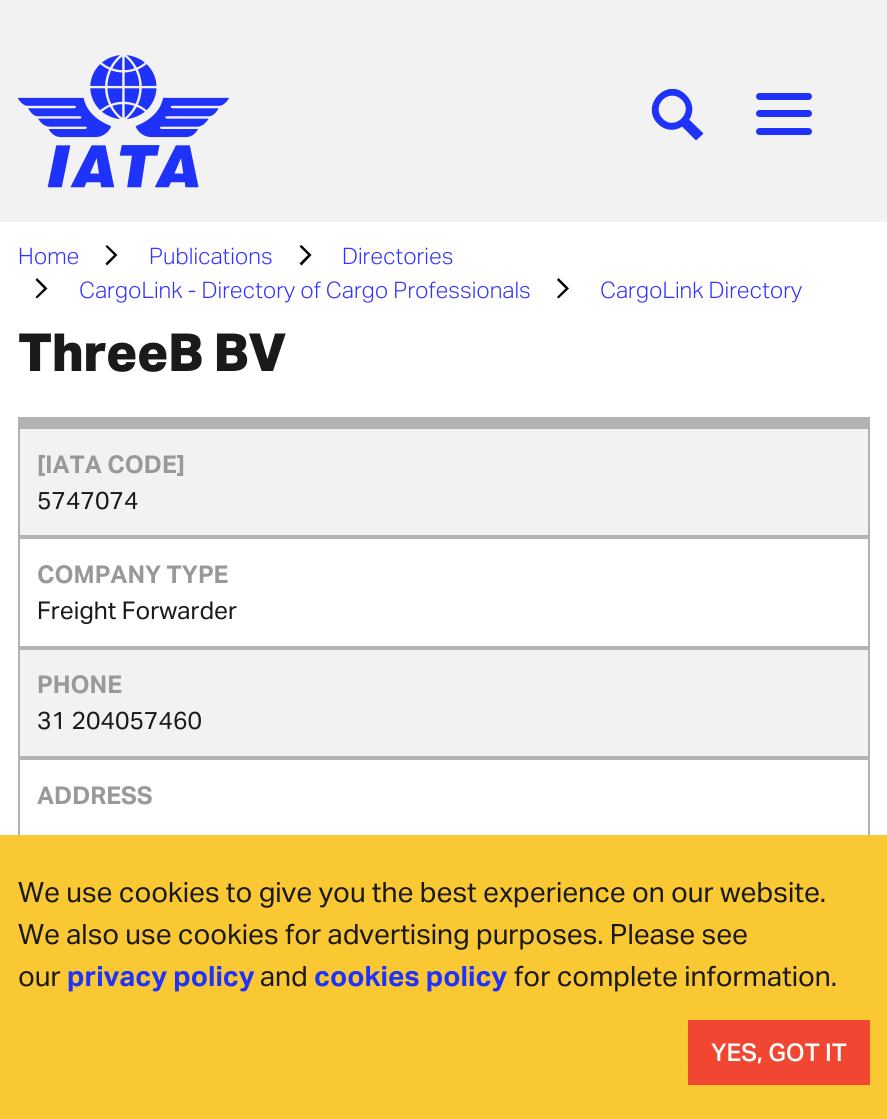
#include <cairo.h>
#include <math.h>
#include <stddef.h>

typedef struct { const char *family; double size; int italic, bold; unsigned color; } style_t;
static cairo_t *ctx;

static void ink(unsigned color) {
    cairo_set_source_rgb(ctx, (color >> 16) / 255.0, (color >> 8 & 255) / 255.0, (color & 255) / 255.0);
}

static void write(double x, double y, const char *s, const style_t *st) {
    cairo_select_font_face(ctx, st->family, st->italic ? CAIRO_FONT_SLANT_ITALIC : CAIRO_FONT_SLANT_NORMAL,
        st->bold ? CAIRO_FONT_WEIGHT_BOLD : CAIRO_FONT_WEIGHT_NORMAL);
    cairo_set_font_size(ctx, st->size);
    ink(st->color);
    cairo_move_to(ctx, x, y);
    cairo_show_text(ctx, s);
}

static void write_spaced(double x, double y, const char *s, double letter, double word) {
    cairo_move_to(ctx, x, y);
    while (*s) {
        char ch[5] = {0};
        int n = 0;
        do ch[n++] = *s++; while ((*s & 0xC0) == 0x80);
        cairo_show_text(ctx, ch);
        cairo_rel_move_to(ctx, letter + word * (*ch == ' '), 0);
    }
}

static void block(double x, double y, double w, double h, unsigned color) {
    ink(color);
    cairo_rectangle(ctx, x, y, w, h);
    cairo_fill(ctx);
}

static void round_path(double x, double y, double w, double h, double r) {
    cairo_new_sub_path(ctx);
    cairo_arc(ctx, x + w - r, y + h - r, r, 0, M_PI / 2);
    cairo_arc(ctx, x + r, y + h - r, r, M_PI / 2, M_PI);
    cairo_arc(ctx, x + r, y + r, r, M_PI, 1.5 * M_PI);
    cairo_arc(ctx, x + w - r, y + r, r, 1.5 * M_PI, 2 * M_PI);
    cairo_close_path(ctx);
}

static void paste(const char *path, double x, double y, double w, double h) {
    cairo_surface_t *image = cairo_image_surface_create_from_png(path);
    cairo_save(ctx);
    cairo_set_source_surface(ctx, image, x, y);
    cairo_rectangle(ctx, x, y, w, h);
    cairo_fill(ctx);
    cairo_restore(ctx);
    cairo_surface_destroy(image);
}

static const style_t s1 = {"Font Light", 22.75, 0, 0, 0x3333ff};
static const style_t s2 = {"Font", 24.5, 0, 1, 0x999999};
static const style_t s3 = {"Font", 24.5, 0, 0, 0x1a1a1a};
static const style_t s4 = {"Font", 28, 0, 0, 0x1a1a1a};
static const style_t s5 = {"Font", 28, 0, 1, 0x1e32fa};
static const style_t s6 = {"Font Medium", 24.5, 0, 0, 0xffffff};

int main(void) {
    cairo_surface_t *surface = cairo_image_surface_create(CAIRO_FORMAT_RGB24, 887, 1119);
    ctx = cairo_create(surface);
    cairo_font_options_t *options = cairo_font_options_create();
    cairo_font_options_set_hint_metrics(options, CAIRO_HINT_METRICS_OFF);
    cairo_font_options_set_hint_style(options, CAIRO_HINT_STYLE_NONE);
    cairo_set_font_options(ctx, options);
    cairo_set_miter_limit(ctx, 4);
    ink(0xffffff);
    cairo_paint(ctx);
    block(0, 0, 887, 222, 0xf2f2f2);
    paste("pic1.png", 18, 55, 211, 133);
    ink(0x1e32fa);
    cairo_new_path(ctx);
    cairo_move_to(ctx, 681.5, 126);
    cairo_line_to(ctx, 688.5, 119);
    cairo_line_to(ctx, 703.5, 133.5);
    cairo_line_to(ctx, 696, 140.5);
    cairo_close_path(ctx);
    cairo_fill(ctx);
    cairo_save(ctx);
    cairo_rectangle(ctx, 651, 89, 54, 51);
    cairo_clip(ctx);
    cairo_new_path(ctx);
    cairo_move_to(ctx, 658, 124);
    cairo_curve_to(ctx, 677, 142, 705, 114, 686, 95);
    cairo_curve_to(ctx, 668, 76, 639, 105, 658, 124);
    cairo_close_path(ctx);
    cairo_move_to(ctx, 682, 100);
    cairo_curve_to(ctx, 694, 112, 675, 131, 663, 119);
    cairo_curve_to(ctx, 650, 106, 669, 87, 682, 100);
    cairo_close_path(ctx);
    cairo_fill(ctx);
    cairo_restore(ctx);
    round_path(756, 93, 56, 7, 3.5);
    cairo_fill(ctx);
    round_path(756, 110, 56, 7, 3.5);
    cairo_fill(ctx);
    round_path(756, 128, 56, 7, 3.5);
    cairo_fill(ctx);
    write(18, 264, "Home", &s1);
    ink(0x000000);
    cairo_new_path(ctx);
    cairo_move_to(ctx, 105.5, 246.5);
    cairo_line_to(ctx, 114, 255);
    cairo_line_to(ctx, 105.5, 263.5);
    cairo_line_to(ctx, 107, 265.5);
    cairo_line_to(ctx, 117.5, 255);
    cairo_line_to(ctx, 107, 245);
    cairo_close_path(ctx);
    cairo_fill(ctx);
    write(149, 264, "Publications", &s1);
    ink(0x000000);
    cairo_new_path(ctx);
    cairo_move_to(ctx, 299.5, 246.5);
    cairo_line_to(ctx, 308, 255);
    cairo_line_to(ctx, 299.5, 263.5);
    cairo_line_to(ctx, 301.5, 265.5);
    cairo_line_to(ctx, 311.5, 255);
    cairo_line_to(ctx, 301.5, 245);
    cairo_close_path(ctx);
    cairo_fill(ctx);
    write(342, 264, "Directories", &s1);
    ink(0x000000);
    cairo_new_path(ctx);
    cairo_move_to(ctx, 35.5, 280);
    cairo_line_to(ctx, 44, 288.5);
    cairo_line_to(ctx, 35.5, 297);
    cairo_line_to(ctx, 37, 298.5);
    cairo_line_to(ctx, 47.5, 288.5);
    cairo_line_to(ctx, 37, 278);
    cairo_close_path(ctx);
    cairo_fill(ctx);
    write(79, 298, "CargoLink - Directory of Cargo Professionals", &s1);
    ink(0x000000);
    cairo_new_path(ctx);
    cairo_move_to(ctx, 557, 280);
    cairo_line_to(ctx, 565.5, 288.5);
    cairo_line_to(ctx, 557, 297);
    cairo_line_to(ctx, 558.5, 298.5);
    cairo_line_to(ctx, 569, 288.5);
    cairo_line_to(ctx, 558.5, 278);
    cairo_close_path(ctx);
    cairo_fill(ctx);
    write(600, 298, "CargoLink Directory", &s1);
    cairo_select_font_face(ctx, "Font ExtraBold", CAIRO_FONT_SLANT_NORMAL, CAIRO_FONT_WEIGHT_NORMAL);
    cairo_set_font_size(ctx, 52.5);
    ink(0x1a1a1a);
    write_spaced(18, 371, "ThreeB BV", -0.5, 0);
    block(18, 417, 852, 10, 0xb3b3b3);
    ink(0xf2f2f2);
    cairo_rectangle(ctx, 19, 428, 850, 108);
    cairo_fill_preserve(ctx);
    ink(0xb3b3b3);
    cairo_stroke(ctx);
    write(37, 473, "[IATA CODE]", &s2);
    write(37, 509, "5747074", &s3);
    cairo_rectangle(ctx, 19, 538, 850, 109);
    ink(0xb3b3b3);
    cairo_stroke(ctx);
    write(37, 583, "COMPANY TYPE", &s2);
    write(37, 619, "Freight Forwarder", &s3);
    ink(0xf2f2f2);
    cairo_rectangle(ctx, 19, 649, 850, 108);
    cairo_fill_preserve(ctx);
    ink(0xb3b3b3);
    cairo_stroke(ctx);
    write(37, 693, "PHONE", &s2);
    write(37, 729, "31 204057460", &s3);
    cairo_rectangle(ctx, 19, 759, 850, 180);
    ink(0xb3b3b3);
    cairo_stroke(ctx);
    write(37, 804, "ADDRESS", &s2);
    block(0, 835, 887, 284, 0xfac832);
    write(18, 902, "We use cookies to give you the best experience on our website.", &s4);
    write(18, 944, "We also use cookies for advertising purposes. Please see", &s4);
    write(18, 986, "our", &s4);
    write(67, 986, "privacy policy", &s5);
    write(260, 986, "and", &s4);
    write(314, 986, "cookies policy", &s5);
    write(514, 986, "for complete information.", &s4);
    block(688, 1020, 182, 65, 0xf04632);
    write(711, 1061, "YES, GOT IT", &s6);
    cairo_surface_write_to_png(surface, "screenshot.png");
    cairo_font_options_destroy(options);
    cairo_destroy(ctx);
    cairo_surface_destroy(surface);
    return 0;
}
